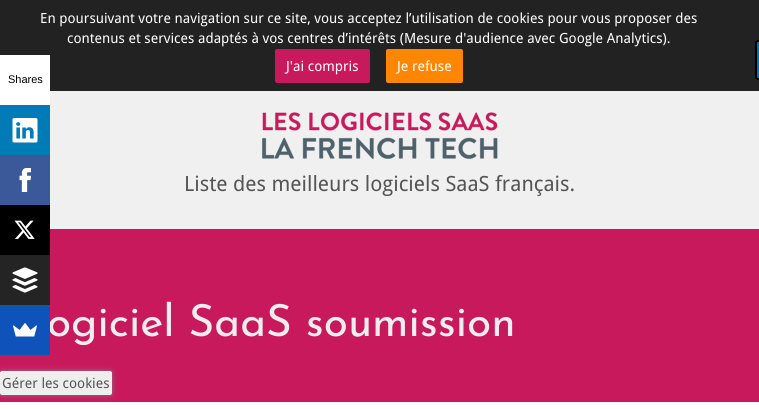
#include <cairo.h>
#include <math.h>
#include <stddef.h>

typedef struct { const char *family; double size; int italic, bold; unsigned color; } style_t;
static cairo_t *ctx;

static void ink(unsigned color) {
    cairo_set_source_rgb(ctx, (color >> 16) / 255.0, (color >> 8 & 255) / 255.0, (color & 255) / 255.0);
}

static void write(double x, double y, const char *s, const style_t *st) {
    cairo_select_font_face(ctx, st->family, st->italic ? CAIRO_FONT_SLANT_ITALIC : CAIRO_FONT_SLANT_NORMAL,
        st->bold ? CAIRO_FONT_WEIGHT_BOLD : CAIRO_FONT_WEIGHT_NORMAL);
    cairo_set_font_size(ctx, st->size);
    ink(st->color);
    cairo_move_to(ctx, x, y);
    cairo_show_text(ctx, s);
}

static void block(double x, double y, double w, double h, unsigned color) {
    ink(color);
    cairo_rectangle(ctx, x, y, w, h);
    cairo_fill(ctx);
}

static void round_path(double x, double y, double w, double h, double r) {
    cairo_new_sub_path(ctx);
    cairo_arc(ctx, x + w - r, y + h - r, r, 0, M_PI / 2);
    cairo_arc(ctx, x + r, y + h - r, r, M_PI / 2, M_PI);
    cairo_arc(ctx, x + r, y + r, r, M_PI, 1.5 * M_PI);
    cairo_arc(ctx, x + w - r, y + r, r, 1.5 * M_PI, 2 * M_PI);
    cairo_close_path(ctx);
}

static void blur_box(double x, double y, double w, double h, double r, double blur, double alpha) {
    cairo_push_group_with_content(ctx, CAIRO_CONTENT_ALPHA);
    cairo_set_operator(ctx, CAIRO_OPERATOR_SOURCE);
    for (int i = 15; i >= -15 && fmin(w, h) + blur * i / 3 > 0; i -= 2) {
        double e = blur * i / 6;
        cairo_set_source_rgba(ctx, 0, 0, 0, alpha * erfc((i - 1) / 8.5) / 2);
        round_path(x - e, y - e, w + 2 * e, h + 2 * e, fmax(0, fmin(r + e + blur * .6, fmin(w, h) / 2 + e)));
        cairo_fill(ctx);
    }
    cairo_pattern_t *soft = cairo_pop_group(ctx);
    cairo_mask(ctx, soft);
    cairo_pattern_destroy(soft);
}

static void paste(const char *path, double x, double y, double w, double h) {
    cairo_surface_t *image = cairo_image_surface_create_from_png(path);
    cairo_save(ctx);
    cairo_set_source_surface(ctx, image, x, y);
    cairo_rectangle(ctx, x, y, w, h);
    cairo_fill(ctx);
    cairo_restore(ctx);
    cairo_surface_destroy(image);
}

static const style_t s1 = {"Liberation Sans", 11, 0, 0, 0x000000};
static const style_t s2 = {"Josefin Sans", 44.25, 0, 0, 0xeeeeee};
static const style_t s3 = {"Droid Sans", 14, 0, 0, 0xffffff};
static const style_t s4 = {"Droid Sans", 21, 0, 0, 0x555555};
static const style_t s5 = {"Droid Sans", 14, 0, 0, 0x555555};

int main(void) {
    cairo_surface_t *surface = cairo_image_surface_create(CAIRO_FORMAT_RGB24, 759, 409);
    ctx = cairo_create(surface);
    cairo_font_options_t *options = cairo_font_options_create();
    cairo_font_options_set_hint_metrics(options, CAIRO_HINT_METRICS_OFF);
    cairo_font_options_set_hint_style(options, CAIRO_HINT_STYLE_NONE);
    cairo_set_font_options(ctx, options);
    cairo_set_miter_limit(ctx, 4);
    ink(0xffffff);
    cairo_paint(ctx);
    block(0, 0, 759, 91, 0x222222);
    block(0, 55, 50, 36, 0xffffff);
    write(8, 83, "Shares", &s1);
    block(0, 105, 50, 50, 0x007bb6);
    paste("pic1.png", 12, 118, 26, 25);
    block(0, 155, 50, 50, 0x3b5998);
    paste("pic2.png", 19, 168, 12, 24);
    block(0, 229, 759, 173, 0xc8195c);
    block(0, 205, 50, 50, 0x000000);
    paste("pic3.png", 14, 220, 21, 19);
    write(47, 336, "ogiciel SaaS soumission", &s2);
    block(0, 255, 50, 50, 0x242424);
    paste("pic4.png", 12, 267, 26, 26);
    block(0, 305, 50, 50, 0x0f52ba);
    paste("pic5.png", 13, 323, 24, 14);
    write(40, 23, "En poursuivant votre navigation sur ce site, vous acceptez l’utilisation de cookies pour vous proposer des", &s3);
    write(67, 43, "contenus et services adaptés à vos centres d’intérêts (Mesure d'audience avec Google Analytics).", &s3);
    ink(0xc8195c);
    round_path(275, 49, 95, 34, 2);
    cairo_fill(ctx);
    write(286, 71, "J'ai compris", &s3);
    ink(0xff8600);
    round_path(386, 49, 77, 34, 2);
    cairo_fill(ctx);
    write(397, 71, "Je refuse", &s3);
    ink(0x0073b7);
    cairo_new_path(ctx);
    cairo_move_to(ctx, 758, 41);
    cairo_line_to(ctx, 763, 41);
    cairo_line_to(ctx, 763, 79);
    cairo_line_to(ctx, 758, 79);
    cairo_curve_to(ctx, 757, 79, 756, 78, 756, 77);
    cairo_line_to(ctx, 756, 43);
    cairo_curve_to(ctx, 756, 42, 757, 41, 758, 41);
    cairo_close_path(ctx);
    cairo_fill_preserve(ctx);
    ink(0x000000);
    cairo_stroke(ctx);
    block(50, 91, 709, 138, 0xf0f0f0);
    paste("pic6.png", 261, 112, 237, 47);
    write(184, 191, "Liste des meilleurs logiciels SaaS français.", &s4);
    ink(0x808080);
    blur_box(0, 371, 112, 24, 2, 2.5, 1);
    ink(0xeeeeee);
    round_path(0, 371, 112, 24, 2);
    cairo_fill(ctx);
    write(2, 388, "Gérer les cookies", &s5);
    cairo_surface_write_to_png(surface, "screenshot.png");
    cairo_font_options_destroy(options);
    cairo_destroy(ctx);
    cairo_surface_destroy(surface);
    return 0;
}
